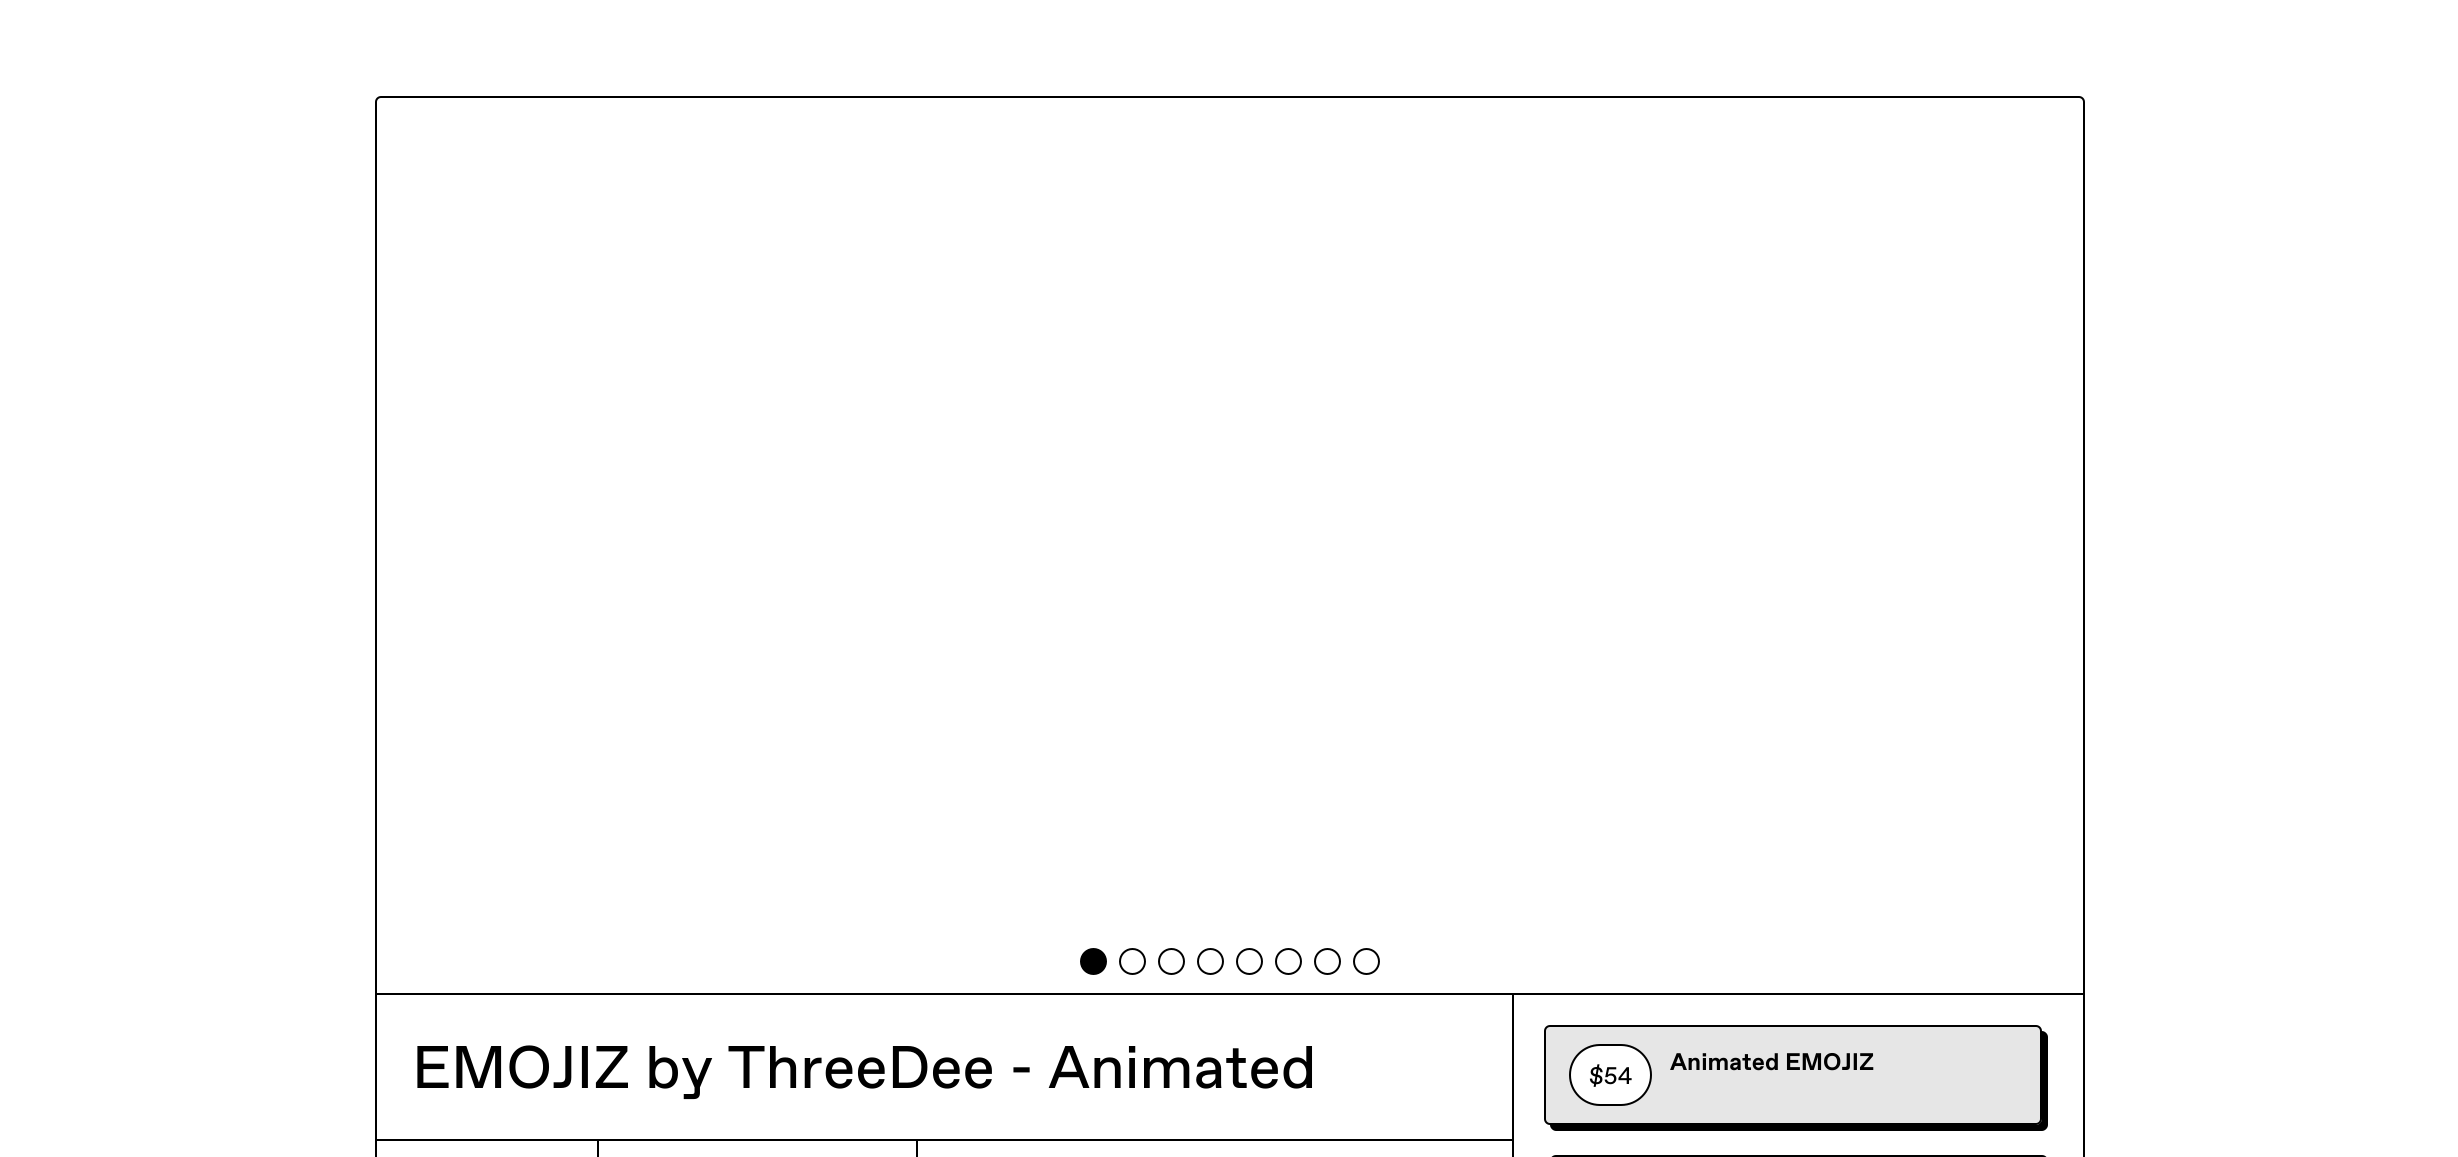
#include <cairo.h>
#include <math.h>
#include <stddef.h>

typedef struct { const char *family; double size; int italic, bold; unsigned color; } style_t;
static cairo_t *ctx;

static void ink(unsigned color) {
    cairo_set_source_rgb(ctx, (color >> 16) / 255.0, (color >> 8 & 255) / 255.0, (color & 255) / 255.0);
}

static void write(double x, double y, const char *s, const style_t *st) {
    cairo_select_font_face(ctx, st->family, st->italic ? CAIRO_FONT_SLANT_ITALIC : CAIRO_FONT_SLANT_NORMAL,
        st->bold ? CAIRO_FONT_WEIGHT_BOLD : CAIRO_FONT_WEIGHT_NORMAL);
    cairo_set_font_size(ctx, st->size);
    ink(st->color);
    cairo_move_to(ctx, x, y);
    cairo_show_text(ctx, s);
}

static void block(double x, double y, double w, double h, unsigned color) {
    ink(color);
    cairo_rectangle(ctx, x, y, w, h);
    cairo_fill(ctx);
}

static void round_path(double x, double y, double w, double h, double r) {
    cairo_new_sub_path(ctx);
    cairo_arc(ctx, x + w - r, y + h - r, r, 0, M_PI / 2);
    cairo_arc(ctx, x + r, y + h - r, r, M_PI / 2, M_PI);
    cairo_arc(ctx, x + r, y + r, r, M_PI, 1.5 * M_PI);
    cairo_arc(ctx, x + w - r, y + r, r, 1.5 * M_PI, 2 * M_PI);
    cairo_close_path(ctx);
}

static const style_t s1 = {"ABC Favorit", 60, 0, 0, 0x000000};
static const style_t s2 = {"ABC Favorit", 24, 0, 1, 0x000000};
static const style_t s3 = {"ABC Favorit", 24, 0, 0, 0x000000};

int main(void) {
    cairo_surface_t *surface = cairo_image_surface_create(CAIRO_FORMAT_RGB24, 2458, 1157);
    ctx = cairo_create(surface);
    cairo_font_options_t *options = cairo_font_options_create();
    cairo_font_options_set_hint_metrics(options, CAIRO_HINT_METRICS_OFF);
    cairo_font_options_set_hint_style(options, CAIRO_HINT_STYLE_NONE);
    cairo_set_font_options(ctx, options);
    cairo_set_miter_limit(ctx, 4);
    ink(0xffffff);
    cairo_paint(ctx);
    round_path(376, 97, 1708, 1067, 5);
    ink(0x000000);
    cairo_stroke(ctx);
    block(377, 993, 1707, 2, 0x000000);
    cairo_arc(ctx, 1093.5, 961.5, 12.5, 0, 2 * M_PI);
    cairo_fill_preserve(ctx);
    cairo_stroke(ctx);
    cairo_arc(ctx, 1132.5, 961.5, 12.5, 0, 2 * M_PI);
    cairo_stroke(ctx);
    cairo_arc(ctx, 1171.5, 961.5, 12.5, 0, 2 * M_PI);
    cairo_stroke(ctx);
    cairo_arc(ctx, 1210.5, 961.5, 12.5, 0, 2 * M_PI);
    cairo_stroke(ctx);
    cairo_arc(ctx, 1249.5, 961.5, 12.5, 0, 2 * M_PI);
    cairo_stroke(ctx);
    cairo_arc(ctx, 1288.5, 961.5, 12.5, 0, 2 * M_PI);
    cairo_stroke(ctx);
    cairo_arc(ctx, 1327.5, 961.5, 12.5, 0, 2 * M_PI);
    cairo_stroke(ctx);
    cairo_arc(ctx, 1366.5, 961.5, 12.5, 0, 2 * M_PI);
    cairo_stroke(ctx);
    block(1512, 995, 2, 162, 0x000000);
    write(412, 1088, "EMOJIZ by ThreeDee - Animated", &s1);
    block(918, 1139, 594, 2, 0x000000);
    cairo_rectangle(ctx, 376, 1140, 222, 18);
    cairo_stroke(ctx);
    cairo_rectangle(ctx, 598, 1140, 319, 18);
    cairo_stroke(ctx);
    cairo_new_path(ctx);
    cairo_move_to(ctx, 1550, 1125);
    cairo_curve_to(ctx, 1550, 1128, 1553, 1131, 1556, 1131);
    cairo_line_to(ctx, 2042, 1131);
    cairo_curve_to(ctx, 2045, 1131, 2048, 1128, 2048, 1125);
    cairo_line_to(ctx, 2048, 1037);
    cairo_curve_to(ctx, 2048, 1034, 2045, 1031, 2042, 1031);
    cairo_line_to(ctx, 2042, 1119);
    cairo_curve_to(ctx, 2042, 1122, 2039, 1125, 2036, 1125);
    cairo_close_path(ctx);
    cairo_fill(ctx);
    cairo_set_source_rgba(ctx, 0, 0, 0, 0.1);
    round_path(1545, 1026, 496, 98, 5);
    cairo_fill_preserve(ctx);
    ink(0x000000);
    cairo_stroke(ctx);
    write(1670, 1070, "Animated EMOJIZ", &s2);
    ink(0xffffff);
    round_path(1570, 1045, 81, 60, 30);
    cairo_fill_preserve(ctx);
    ink(0x000000);
    cairo_stroke(ctx);
    write(1589, 1084, "$54", &s3);
    round_path(1551, 1156, 496, 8, 5);
    cairo_stroke(ctx);
    cairo_surface_write_to_png(surface, "screenshot.png");
    cairo_font_options_destroy(options);
    cairo_destroy(ctx);
    cairo_surface_destroy(surface);
    return 0;
}
